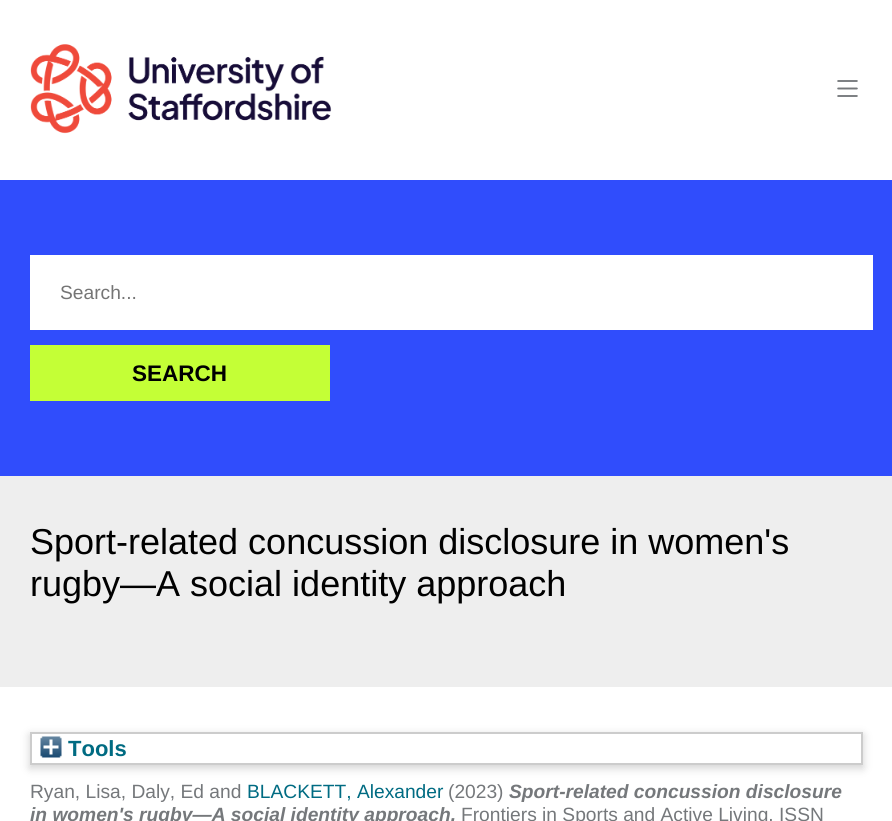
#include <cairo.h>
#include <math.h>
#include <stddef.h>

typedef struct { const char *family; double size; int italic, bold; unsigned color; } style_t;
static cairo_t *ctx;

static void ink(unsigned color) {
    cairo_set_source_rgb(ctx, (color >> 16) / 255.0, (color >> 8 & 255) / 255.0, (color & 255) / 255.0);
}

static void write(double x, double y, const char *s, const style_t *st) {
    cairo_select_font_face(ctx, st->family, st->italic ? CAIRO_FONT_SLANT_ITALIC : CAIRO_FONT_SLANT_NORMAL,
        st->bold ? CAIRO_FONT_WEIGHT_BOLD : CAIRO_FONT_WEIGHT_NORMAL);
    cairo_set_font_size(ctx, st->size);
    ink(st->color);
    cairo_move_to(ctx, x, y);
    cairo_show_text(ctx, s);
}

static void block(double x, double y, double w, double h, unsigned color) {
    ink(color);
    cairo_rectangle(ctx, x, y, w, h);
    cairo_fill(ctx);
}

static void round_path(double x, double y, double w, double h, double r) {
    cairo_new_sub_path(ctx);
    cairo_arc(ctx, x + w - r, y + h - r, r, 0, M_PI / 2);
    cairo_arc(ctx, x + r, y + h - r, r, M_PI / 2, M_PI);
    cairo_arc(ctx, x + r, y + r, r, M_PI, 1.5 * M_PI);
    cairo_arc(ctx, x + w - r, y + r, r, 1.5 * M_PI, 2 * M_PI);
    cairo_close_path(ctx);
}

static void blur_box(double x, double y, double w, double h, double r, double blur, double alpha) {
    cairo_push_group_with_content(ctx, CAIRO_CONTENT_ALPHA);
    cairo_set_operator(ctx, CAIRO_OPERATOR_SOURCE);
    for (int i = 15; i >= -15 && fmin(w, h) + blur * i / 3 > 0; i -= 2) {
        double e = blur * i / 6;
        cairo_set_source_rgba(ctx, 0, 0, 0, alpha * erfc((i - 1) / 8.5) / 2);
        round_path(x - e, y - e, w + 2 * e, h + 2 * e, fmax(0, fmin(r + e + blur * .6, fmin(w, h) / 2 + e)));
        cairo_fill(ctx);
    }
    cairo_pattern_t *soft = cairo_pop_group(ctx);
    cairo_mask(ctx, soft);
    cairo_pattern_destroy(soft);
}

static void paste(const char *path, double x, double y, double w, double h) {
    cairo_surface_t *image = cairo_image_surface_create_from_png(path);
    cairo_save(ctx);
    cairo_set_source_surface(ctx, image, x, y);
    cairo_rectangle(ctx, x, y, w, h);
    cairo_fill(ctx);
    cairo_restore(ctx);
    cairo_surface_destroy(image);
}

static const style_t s1 = {"Liberation Sans", 19.2, 0, 0, 0x757575};
static const style_t s2 = {"Liberation Sans", 22.5, 0, 1, 0x000000};
static const style_t s3 = {"Liberation Sans", 36, 0, 0, 0x000000};
static const style_t s4 = {"Liberation Sans", 22, 0, 1, 0x006b82};
static const style_t s5 = {"Liberation Sans", 19.2, 0, 0, 0x75787b};
static const style_t s6 = {"Liberation Sans", 19.2, 0, 0, 0x006b82};
static const style_t s7 = {"Liberation Sans", 19.2, 1, 1, 0x75787b};

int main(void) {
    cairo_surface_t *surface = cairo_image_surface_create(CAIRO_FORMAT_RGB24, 892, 821);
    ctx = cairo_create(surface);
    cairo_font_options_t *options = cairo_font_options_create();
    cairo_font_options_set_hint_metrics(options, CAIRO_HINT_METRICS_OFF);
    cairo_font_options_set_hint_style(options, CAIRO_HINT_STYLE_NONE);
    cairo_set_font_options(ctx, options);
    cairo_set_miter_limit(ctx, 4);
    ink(0xeeeeee);
    cairo_paint(ctx);
    block(0, 0, 892, 180, 0xffffff);
    paste("pic1.png", 30, 44, 302, 90);
    paste("pic2.png", 837, 80, 21, 17);
    block(0, 180, 892, 296, 0x304dfc);
    block(30, 255, 843, 75, 0xffffff);
    write(60, 299, "Search...", &s1);
    block(30, 345, 300, 56, 0xc4ff36);
    write(132, 381, "SEARCH", &s2);
    write(30, 554, "Sport-related concussion disclosure in women's", &s3);
    write(30, 596, "rugby—A social identity approach", &s3);
    block(0, 687, 892, 134, 0xffffff);
    ink(0x646464);
    blur_box(30, 735, 833, 33, 0, 4.5, 0.3);
    ink(0xffffff);
    cairo_rectangle(ctx, 31, 733, 831, 31);
    cairo_fill_preserve(ctx);
    ink(0xcccccc);
    cairo_stroke(ctx);
    paste("pic3.png", 40, 736, 22, 22);
    write(68, 756, "Tools", &s4);
    write(30, 798, "Ryan, Lisa, Daly, Ed and", &s5);
    write(247, 798, "BLACKETT, Alexander", &s6);
    write(448, 798, "(2023)", &s5);
    write(509, 798, "Sport-related concussion disclosure", &s7);
    write(30, 821, "in women's rugby—A social identity approach.", &s7);
    write(461, 821, "Frontiers in Sports and Active Living. ISSN", &s5);
    cairo_surface_write_to_png(surface, "screenshot.png");
    cairo_font_options_destroy(options);
    cairo_destroy(ctx);
    cairo_surface_destroy(surface);
    return 0;
}
